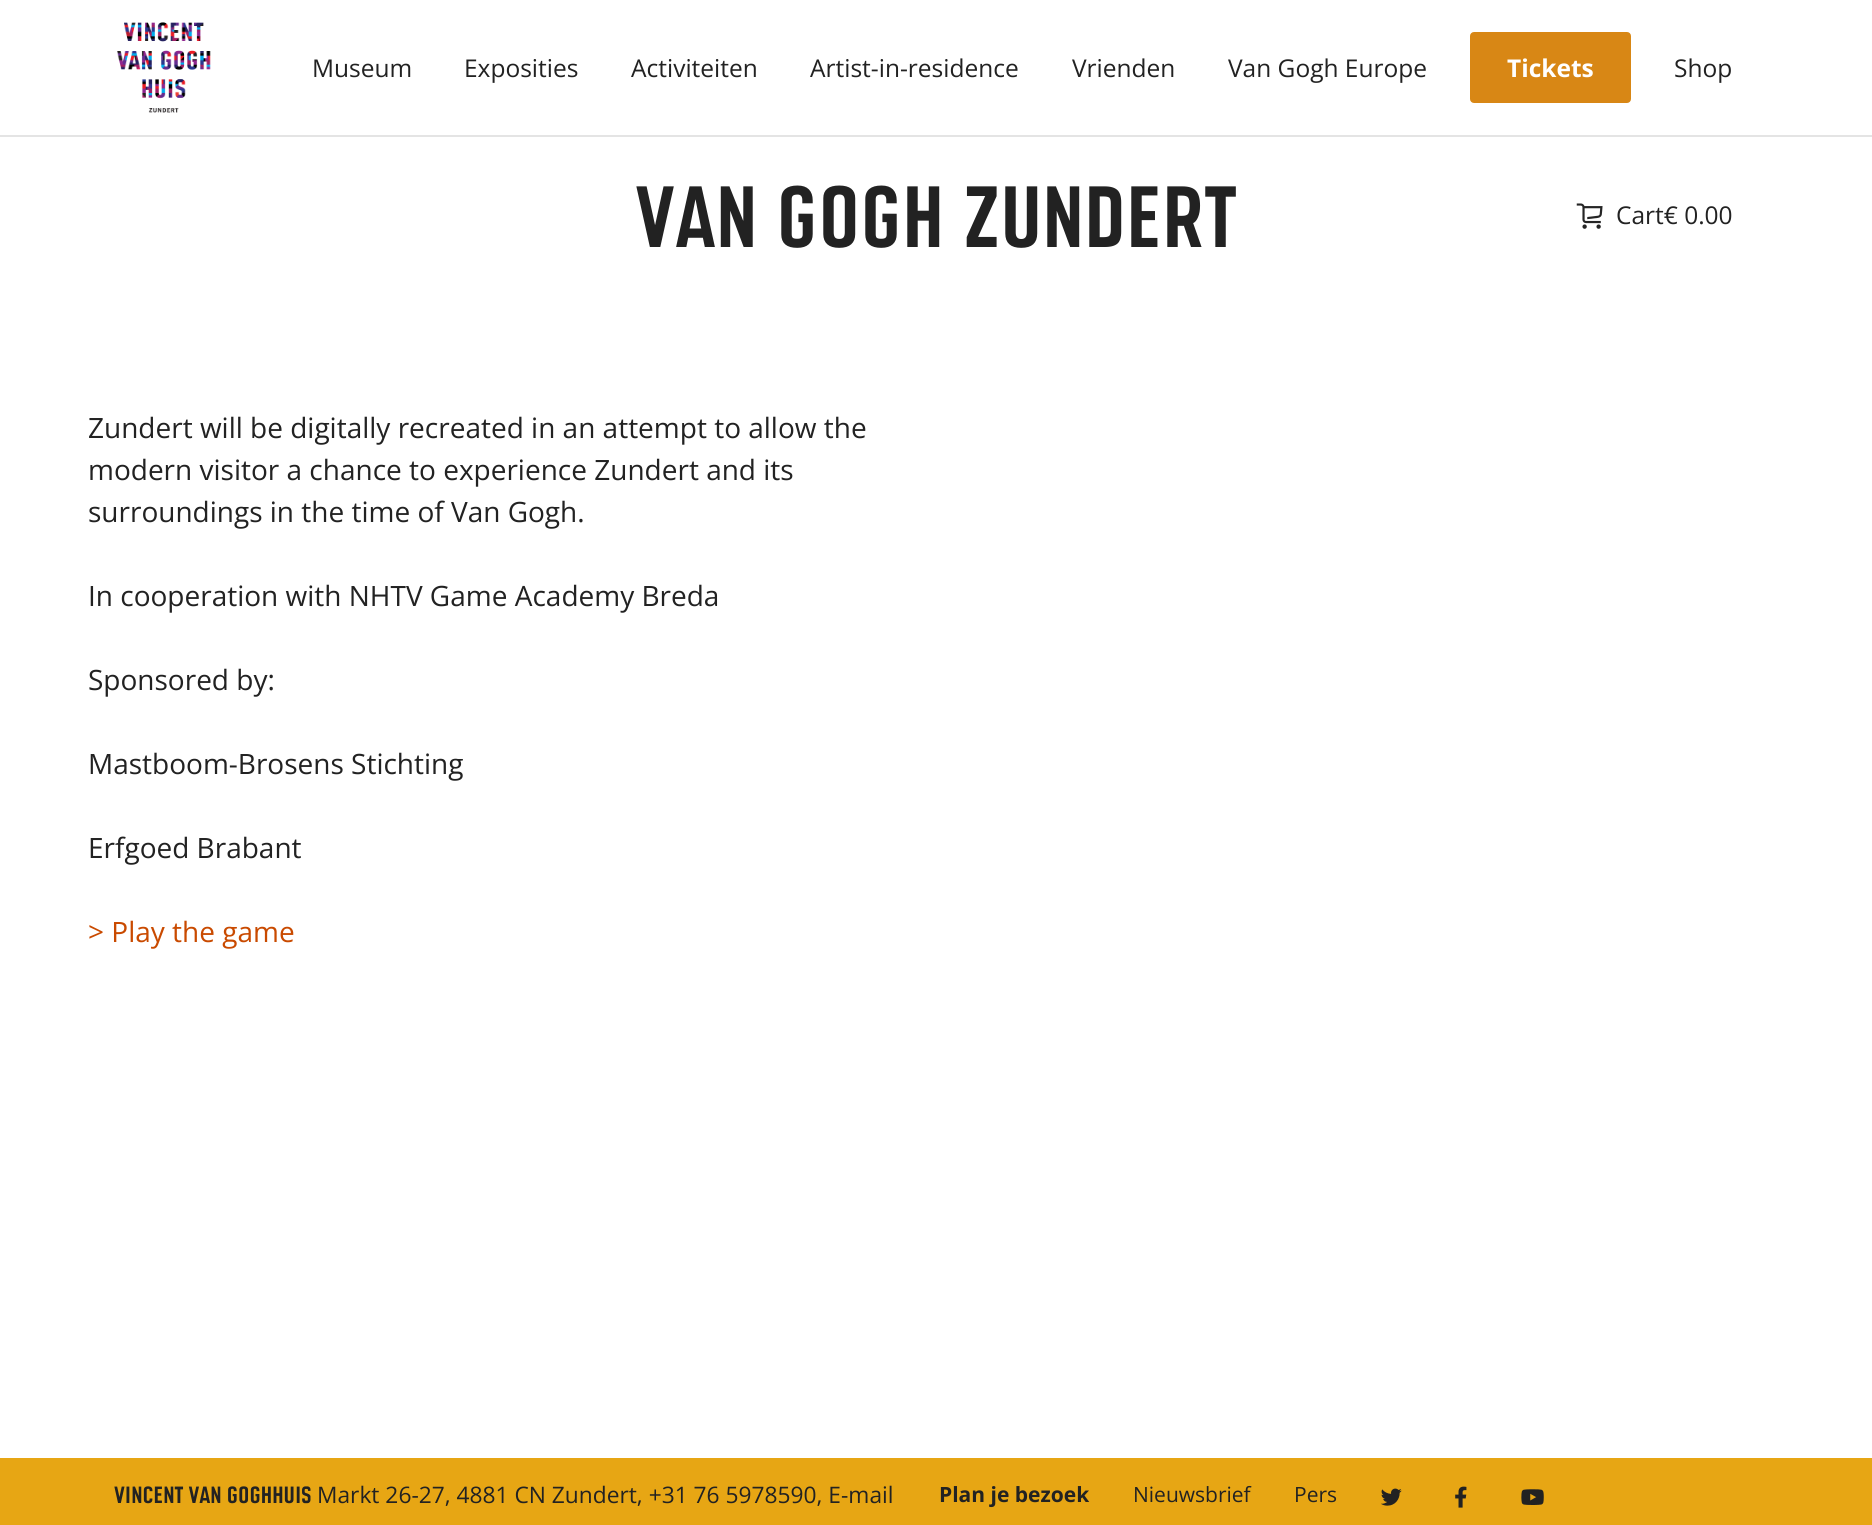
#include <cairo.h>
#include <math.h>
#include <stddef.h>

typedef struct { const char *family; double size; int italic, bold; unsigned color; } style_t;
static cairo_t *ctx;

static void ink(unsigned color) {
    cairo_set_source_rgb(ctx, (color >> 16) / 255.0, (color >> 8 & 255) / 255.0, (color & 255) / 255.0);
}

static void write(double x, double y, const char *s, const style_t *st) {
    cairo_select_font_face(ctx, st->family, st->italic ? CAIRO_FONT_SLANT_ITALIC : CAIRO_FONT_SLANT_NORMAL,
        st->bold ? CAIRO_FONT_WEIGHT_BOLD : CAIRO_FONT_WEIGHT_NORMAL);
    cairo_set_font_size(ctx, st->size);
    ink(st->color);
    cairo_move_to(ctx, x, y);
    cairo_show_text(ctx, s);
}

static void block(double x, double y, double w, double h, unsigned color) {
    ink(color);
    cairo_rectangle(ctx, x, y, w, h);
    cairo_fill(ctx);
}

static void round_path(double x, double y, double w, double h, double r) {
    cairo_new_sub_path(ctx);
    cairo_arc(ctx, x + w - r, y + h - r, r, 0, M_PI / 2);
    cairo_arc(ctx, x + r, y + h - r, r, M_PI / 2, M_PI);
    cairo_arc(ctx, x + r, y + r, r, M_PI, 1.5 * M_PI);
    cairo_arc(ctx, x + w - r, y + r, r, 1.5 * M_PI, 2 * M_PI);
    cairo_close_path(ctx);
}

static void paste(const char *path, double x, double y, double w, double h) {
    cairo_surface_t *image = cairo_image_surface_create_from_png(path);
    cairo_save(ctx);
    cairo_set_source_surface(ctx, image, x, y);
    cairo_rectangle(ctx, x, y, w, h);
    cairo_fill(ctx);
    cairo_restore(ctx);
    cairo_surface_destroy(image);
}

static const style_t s1 = {"Open Sans", 24.5, 0, 0, 0x222222};
static const style_t s2 = {"Open Sans", 24.5, 0, 1, 0xffffff};
static const style_t s3 = {"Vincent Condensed", 84, 0, 0, 0x222222};
static const style_t s4 = {"Open Sans", 28, 0, 0, 0x222222};
static const style_t s5 = {"Open Sans", 28, 0, 0, 0xc94a00};
static const style_t s6 = {"Vincent Condensed", 22.75, 0, 0, 0x222222};
static const style_t s7 = {"Open Sans", 22.75, 0, 0, 0x222222};
static const style_t s8 = {"Open Sans", 21, 0, 1, 0x222222};
static const style_t s9 = {"Open Sans", 21, 0, 0, 0x222222};

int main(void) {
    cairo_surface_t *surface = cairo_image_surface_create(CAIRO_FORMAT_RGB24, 1872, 1525);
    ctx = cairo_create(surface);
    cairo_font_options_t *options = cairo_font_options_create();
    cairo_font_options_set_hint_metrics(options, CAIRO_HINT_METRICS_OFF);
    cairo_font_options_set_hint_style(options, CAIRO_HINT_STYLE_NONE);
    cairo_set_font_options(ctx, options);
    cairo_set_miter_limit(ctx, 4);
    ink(0xffffff);
    cairo_paint(ctx);
    block(0, 135, 1872, 2, 0xe4e4e4);
    paste("pic1.png", 117, 22, 94, 91);
    write(312, 77, "Museum", &s1);
    write(464, 77, "Exposities", &s1);
    write(631, 77, "Activiteiten", &s1);
    write(810, 77, "Artist-in-residence", &s1);
    write(1072, 77, "Vrienden", &s1);
    write(1228, 77, "Van Gogh Europe", &s1);
    ink(0xd88715);
    round_path(1471, 33, 159, 69, 3);
    cairo_fill_preserve(ctx);
    cairo_stroke(ctx);
    write(1507, 77, "Tickets", &s2);
    write(1674, 77, "Shop", &s1);
    paste("pic2.png", 1576, 203, 27, 26);
    write(1616, 224, "Cart€ 0.00", &s1);
    write(635, 247, "VAN GOGH ZUNDERT", &s3);
    write(88, 438, "Zundert will be digitally recreated in an attempt to allow the", &s4);
    write(88, 480, "modern visitor a chance to experience Zundert and its", &s4);
    write(88, 522, "surroundings in the time of Van Gogh.", &s4);
    write(88, 606, "In cooperation with NHTV Game Academy Breda", &s4);
    write(88, 690, "Sponsored by:", &s4);
    write(88, 774, "Mastboom-Brosens Stichting", &s4);
    write(88, 858, "Erfgoed Brabant", &s4);
    write(88, 942, "> Play the game", &s5);
    block(0, 1458, 1872, 67, 0xe7a614);
    write(114, 1503, "VINCENT VAN GOGHHUIS", &s6);
    write(317, 1503, "Markt 26-27, 4881 CN Zundert, +31 76 5978590, E-mail", &s7);
    write(939, 1502, "Plan je bezoek", &s8);
    write(1133, 1502, "Nieuwsbrief", &s9);
    write(1294, 1502, "Pers", &s9);
    paste("pic3.png", 1381, 1488, 21, 18);
    paste("pic4.png", 1455, 1486, 12, 22);
    paste("pic5.png", 1521, 1489, 23, 16);
    cairo_surface_write_to_png(surface, "screenshot.png");
    cairo_font_options_destroy(options);
    cairo_destroy(ctx);
    cairo_surface_destroy(surface);
    return 0;
}
